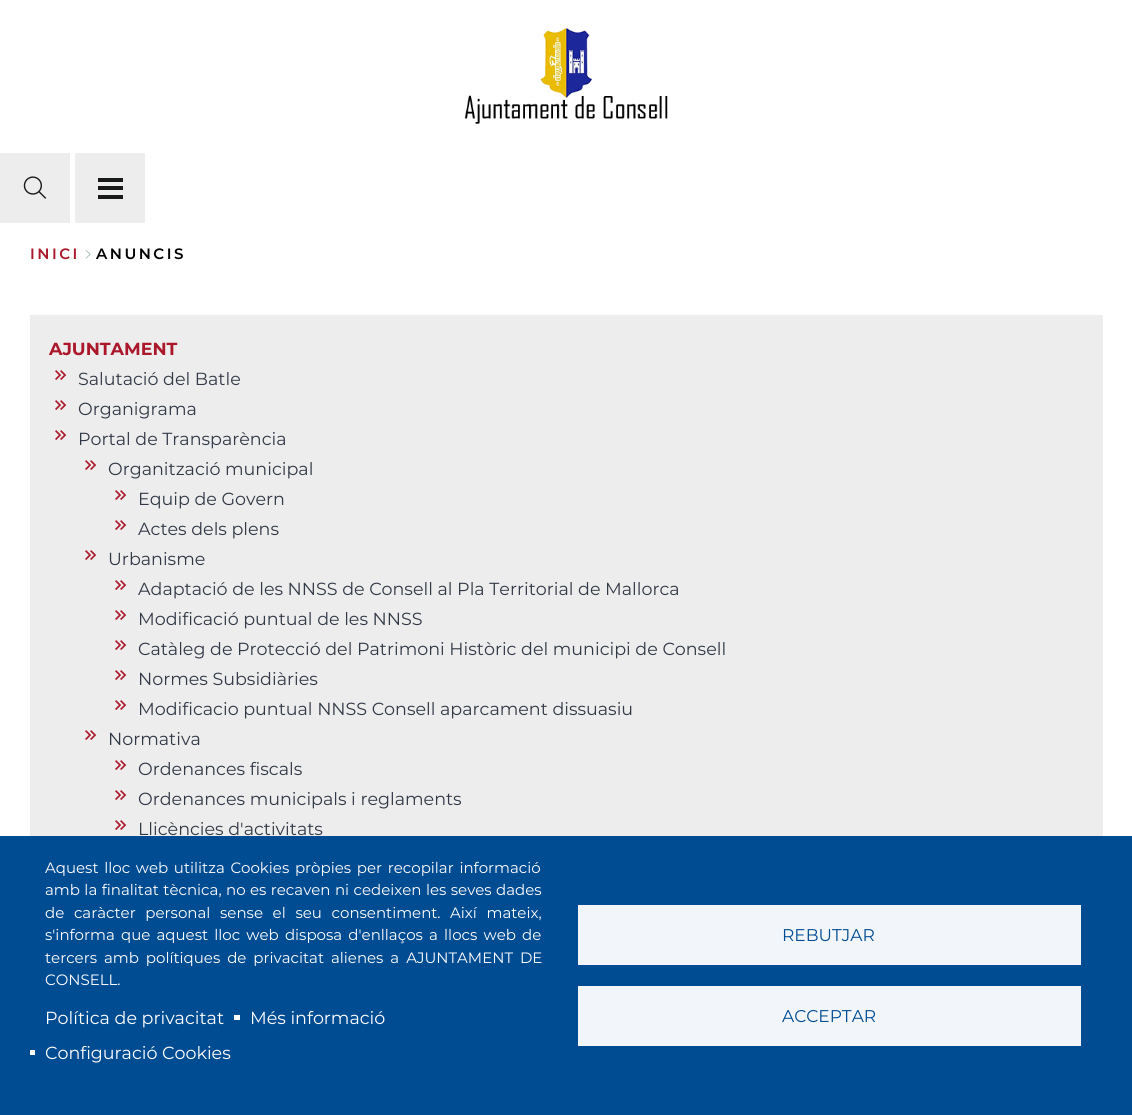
#include <cairo.h>
#include <math.h>
#include <stddef.h>

typedef struct { const char *family; double size; int italic, bold; unsigned color; } style_t;
static cairo_t *ctx;

static void ink(unsigned color) {
    cairo_set_source_rgb(ctx, (color >> 16) / 255.0, (color >> 8 & 255) / 255.0, (color & 255) / 255.0);
}

static void write(double x, double y, const char *s, const style_t *st) {
    cairo_select_font_face(ctx, st->family, st->italic ? CAIRO_FONT_SLANT_ITALIC : CAIRO_FONT_SLANT_NORMAL,
        st->bold ? CAIRO_FONT_WEIGHT_BOLD : CAIRO_FONT_WEIGHT_NORMAL);
    cairo_set_font_size(ctx, st->size);
    ink(st->color);
    cairo_move_to(ctx, x, y);
    cairo_show_text(ctx, s);
}

static void write_spaced(double x, double y, const char *s, double letter, double word) {
    cairo_move_to(ctx, x, y);
    while (*s) {
        char ch[5] = {0};
        int n = 0;
        do ch[n++] = *s++; while ((*s & 0xC0) == 0x80);
        cairo_show_text(ctx, ch);
        cairo_rel_move_to(ctx, letter + word * (*ch == ' '), 0);
    }
}

static void block(double x, double y, double w, double h, unsigned color) {
    ink(color);
    cairo_rectangle(ctx, x, y, w, h);
    cairo_fill(ctx);
}

static void paste(const char *path, double x, double y, double w, double h) {
    cairo_surface_t *image = cairo_image_surface_create_from_png(path);
    cairo_save(ctx);
    cairo_set_source_surface(ctx, image, x, y);
    cairo_rectangle(ctx, x, y, w, h);
    cairo_fill(ctx);
    cairo_restore(ctx);
    cairo_surface_destroy(image);
}

static const style_t s1 = {"Montserrat", 17.5, 0, 1, 0xab182b};
static const style_t s2 = {"Montserrat", 17.5, 0, 0, 0x323946};
static const style_t s3 = {"Montserrat", 15, 0, 0, 0xffffff};
static const style_t s4 = {"Montserrat", 17.5, 0, 0, 0xffffff};
static const style_t s5 = {"Montserrat", 17, 0, 0, 0x004c93};

int main(void) {
    cairo_surface_t *surface = cairo_image_surface_create(CAIRO_FORMAT_RGB24, 1132, 1115);
    ctx = cairo_create(surface);
    cairo_font_options_t *options = cairo_font_options_create();
    cairo_font_options_set_hint_metrics(options, CAIRO_HINT_METRICS_OFF);
    cairo_font_options_set_hint_style(options, CAIRO_HINT_STYLE_NONE);
    cairo_set_font_options(ctx, options);
    cairo_set_miter_limit(ctx, 4);
    ink(0xffffff);
    cairo_paint(ctx);
    paste("pic1.png", 464, 28, 204, 96);
    block(0, 153, 70, 70, 0xededed);
    paste("pic2.png", 23, 176, 24, 23);
    block(75, 153, 70, 70, 0xededed);
    block(98, 186, 25, 4, 0x191a1a);
    block(98, 178, 25, 4, 0x191a1a);
    block(98, 195, 25, 4, 0x191a1a);
    cairo_select_font_face(ctx, "Montserrat SemiBold", CAIRO_FONT_SLANT_NORMAL, CAIRO_FONT_WEIGHT_NORMAL);
    cairo_set_font_size(ctx, 15);
    ink(0xab182b);
    write_spaced(30, 259, "INICI", 2.5, 0);
    paste("pic3.png", 85, 250, 6, 9);
    ink(0x000000);
    write_spaced(96, 259, "ANUNCIS", 2.5, 0);
    block(30, 315, 1073, 521, 0xededed);
    write(49, 355, "AJUNTAMENT", &s1);
    paste("pic4.png", 55, 370, 12, 10);
    write(78, 385, "Salutació del Batle", &s2);
    paste("pic4.png", 55, 400, 12, 10);
    write(78, 415, "Organigrama", &s2);
    paste("pic4.png", 55, 430, 12, 10);
    write(78, 445, "Portal de Transparència", &s2);
    paste("pic4.png", 85, 460, 12, 10);
    write(108, 475, "Organització municipal", &s2);
    paste("pic4.png", 115, 490, 12, 10);
    write(138, 505, "Equip de Govern", &s2);
    paste("pic4.png", 115, 520, 12, 10);
    write(138, 535, "Actes dels plens", &s2);
    paste("pic4.png", 85, 550, 12, 10);
    write(108, 565, "Urbanisme", &s2);
    paste("pic4.png", 115, 580, 12, 10);
    write(138, 595, "Adaptació de les NNSS de Consell al Pla Territorial de Mallorca", &s2);
    paste("pic4.png", 115, 610, 12, 10);
    write(138, 625, "Modificació puntual de les NNSS", &s2);
    paste("pic4.png", 115, 640, 12, 10);
    write(138, 655, "Catàleg de Protecció del Patrimoni Històric del municipi de Consell", &s2);
    paste("pic4.png", 115, 670, 12, 10);
    write(138, 685, "Normes Subsidiàries", &s2);
    paste("pic4.png", 115, 700, 12, 10);
    write(138, 715, "Modificacio puntual NNSS Consell aparcament dissuasiu", &s2);
    paste("pic4.png", 85, 730, 12, 10);
    write(108, 745, "Normativa", &s2);
    paste("pic4.png", 115, 760, 12, 10);
    write(138, 775, "Ordenances fiscals", &s2);
    paste("pic4.png", 115, 790, 12, 10);
    write(138, 805, "Ordenances municipals i reglaments", &s2);
    paste("pic4.png", 115, 820, 12, 10);
    write(138, 835, "Llicències d'activitats", &s2);
    block(0, 836, 1132, 279, 0x004c93);
    cairo_set_font_size(ctx, 15);
    ink(0xffffff);
    write_spaced(45, 873, "Aquest lloc web utilitza Cookies pròpies per recopilar informació", 0, 1.75);
    write_spaced(45, 895, "amb la finalitat tècnica, no es recaven ni cedeixen les seves dades", 0, 0.5);
    write_spaced(45, 918, "de caràcter personal sense el seu consentiment.", 0, 5.75);
    write_spaced(450, 918, "Així mateix,", 0, 5.75);
    write_spaced(45, 940, "s'informa que aquest lloc web disposa d'enllaços a llocs web de", 0, 2.25);
    write_spaced(45, 963, "tercers amb polítiques de privacitat alienes a AJUNTAMENT DE", 0, 3);
    write(45, 985, "CONSELL.", &s3);
    write(45, 1024, "Política de privacitat", &s4);
    block(234, 1015, 6, 5, 0xffffff);
    write(250, 1024, "Més informació", &s4);
    block(30, 1050, 5, 5, 0xffffff);
    write(45, 1059, "Configuració Cookies", &s4);
    block(578, 905, 503, 60, 0xf2f6fa);
    write(782, 941, "REBUTJAR", &s5);
    block(578, 986, 503, 60, 0xf2f6fa);
    write(782, 1022, "ACCEPTAR", &s5);
    cairo_surface_write_to_png(surface, "screenshot.png");
    cairo_font_options_destroy(options);
    cairo_destroy(ctx);
    cairo_surface_destroy(surface);
    return 0;
}
